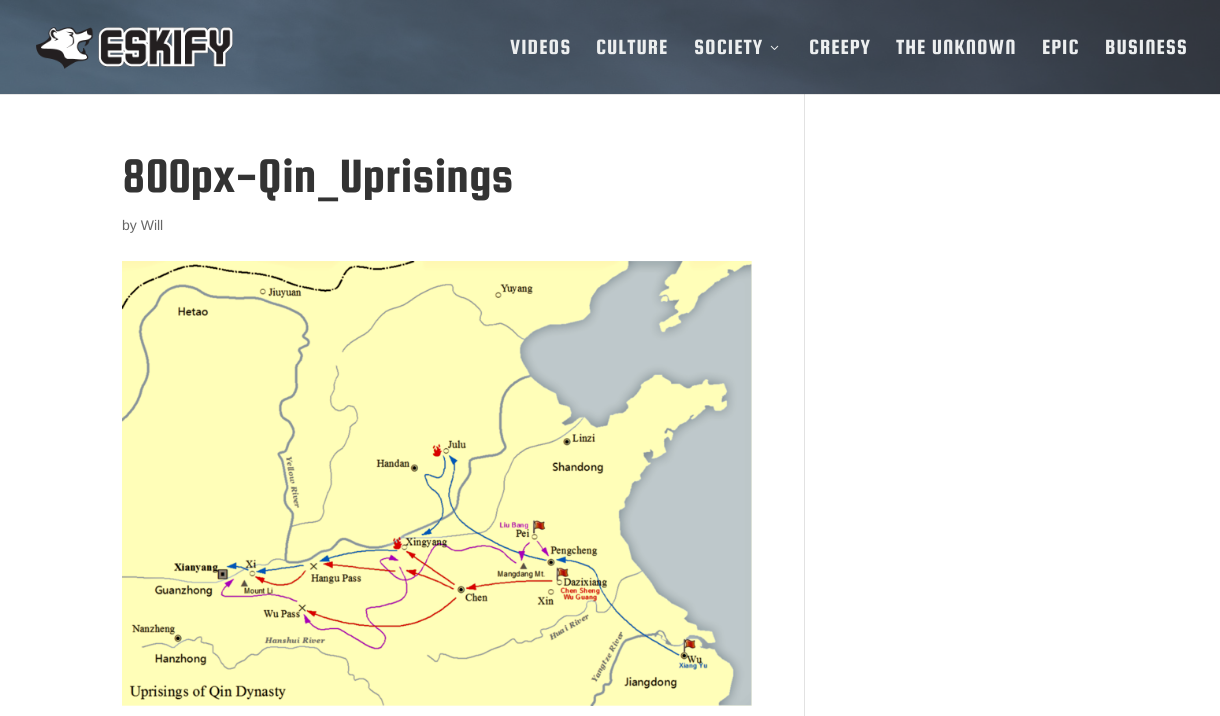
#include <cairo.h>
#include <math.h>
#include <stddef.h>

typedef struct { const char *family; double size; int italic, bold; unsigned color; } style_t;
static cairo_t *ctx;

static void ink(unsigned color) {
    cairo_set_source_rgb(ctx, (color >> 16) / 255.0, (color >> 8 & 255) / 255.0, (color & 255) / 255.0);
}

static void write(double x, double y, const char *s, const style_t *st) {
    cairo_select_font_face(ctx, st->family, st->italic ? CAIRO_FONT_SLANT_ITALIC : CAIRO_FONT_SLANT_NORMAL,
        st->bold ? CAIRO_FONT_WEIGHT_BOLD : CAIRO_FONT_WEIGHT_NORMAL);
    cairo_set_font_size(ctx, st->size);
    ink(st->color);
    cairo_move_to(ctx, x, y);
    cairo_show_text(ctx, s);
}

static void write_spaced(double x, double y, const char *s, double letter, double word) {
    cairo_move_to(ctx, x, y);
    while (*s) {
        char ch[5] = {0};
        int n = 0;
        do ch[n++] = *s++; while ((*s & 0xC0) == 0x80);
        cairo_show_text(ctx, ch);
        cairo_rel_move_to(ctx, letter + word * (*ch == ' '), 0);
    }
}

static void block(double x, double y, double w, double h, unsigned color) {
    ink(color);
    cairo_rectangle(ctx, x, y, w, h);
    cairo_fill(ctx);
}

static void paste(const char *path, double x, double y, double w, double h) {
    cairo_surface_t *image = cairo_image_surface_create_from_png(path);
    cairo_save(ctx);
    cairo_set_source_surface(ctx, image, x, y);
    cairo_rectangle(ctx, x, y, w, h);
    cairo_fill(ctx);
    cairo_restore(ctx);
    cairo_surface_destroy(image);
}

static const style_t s1 = {"Squada One", 50, 0, 0, 0x333333};
static const style_t s2 = {"Liberation Sans", 14, 0, 0, 0x666666};

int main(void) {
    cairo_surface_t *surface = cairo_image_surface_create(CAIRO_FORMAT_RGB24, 1220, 716);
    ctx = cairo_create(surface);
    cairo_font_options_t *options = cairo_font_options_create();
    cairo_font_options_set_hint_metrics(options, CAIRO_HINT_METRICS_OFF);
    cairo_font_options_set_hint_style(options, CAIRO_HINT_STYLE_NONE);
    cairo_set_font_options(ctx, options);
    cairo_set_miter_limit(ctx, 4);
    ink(0xffffff);
    cairo_paint(ctx);
    block(0, 94, 1220, 1, 0xe6e6e6);
    block(804, 93, 1, 623, 0xe2e2e2);
    block(0, 0, 1220, 94, 0x5b5b5b);
    paste("pic1.png", 0, 0, 1220, 94);
    paste("pic2.png", 36, 27, 197, 42);
    cairo_select_font_face(ctx, "Squada One", CAIRO_FONT_SLANT_NORMAL, CAIRO_FONT_WEIGHT_NORMAL);
    cairo_set_font_size(ctx, 22);
    ink(0xeceeef);
    write_spaced(510, 54, "VIDEOS", 1, 0);
    write_spaced(596, 54, "CULTURE", 1, 0);
    write_spaced(694, 54, "SOCIETY", 1, 0);
    paste("pic3.png", 770, 45, 9, 5);
    write_spaced(809, 54, "CREEPY", 1, 0);
    write_spaced(896, 54, "THE UNKNOWN", 1, 0);
    write_spaced(1042, 54, "EPIC", 1, 0);
    write_spaced(1105, 54, "BUSINESS", 1, 0);
    write(122, 192, "800px-Qin_Uprisings", &s1);
    write(122, 230, "by Will", &s2);
    paste("pic4.png", 122, 261, 630, 445);
    block(804, 94, 1, 1, 0xcbcbcb);
    cairo_surface_write_to_png(surface, "screenshot.png");
    cairo_font_options_destroy(options);
    cairo_destroy(ctx);
    cairo_surface_destroy(surface);
    return 0;
}
